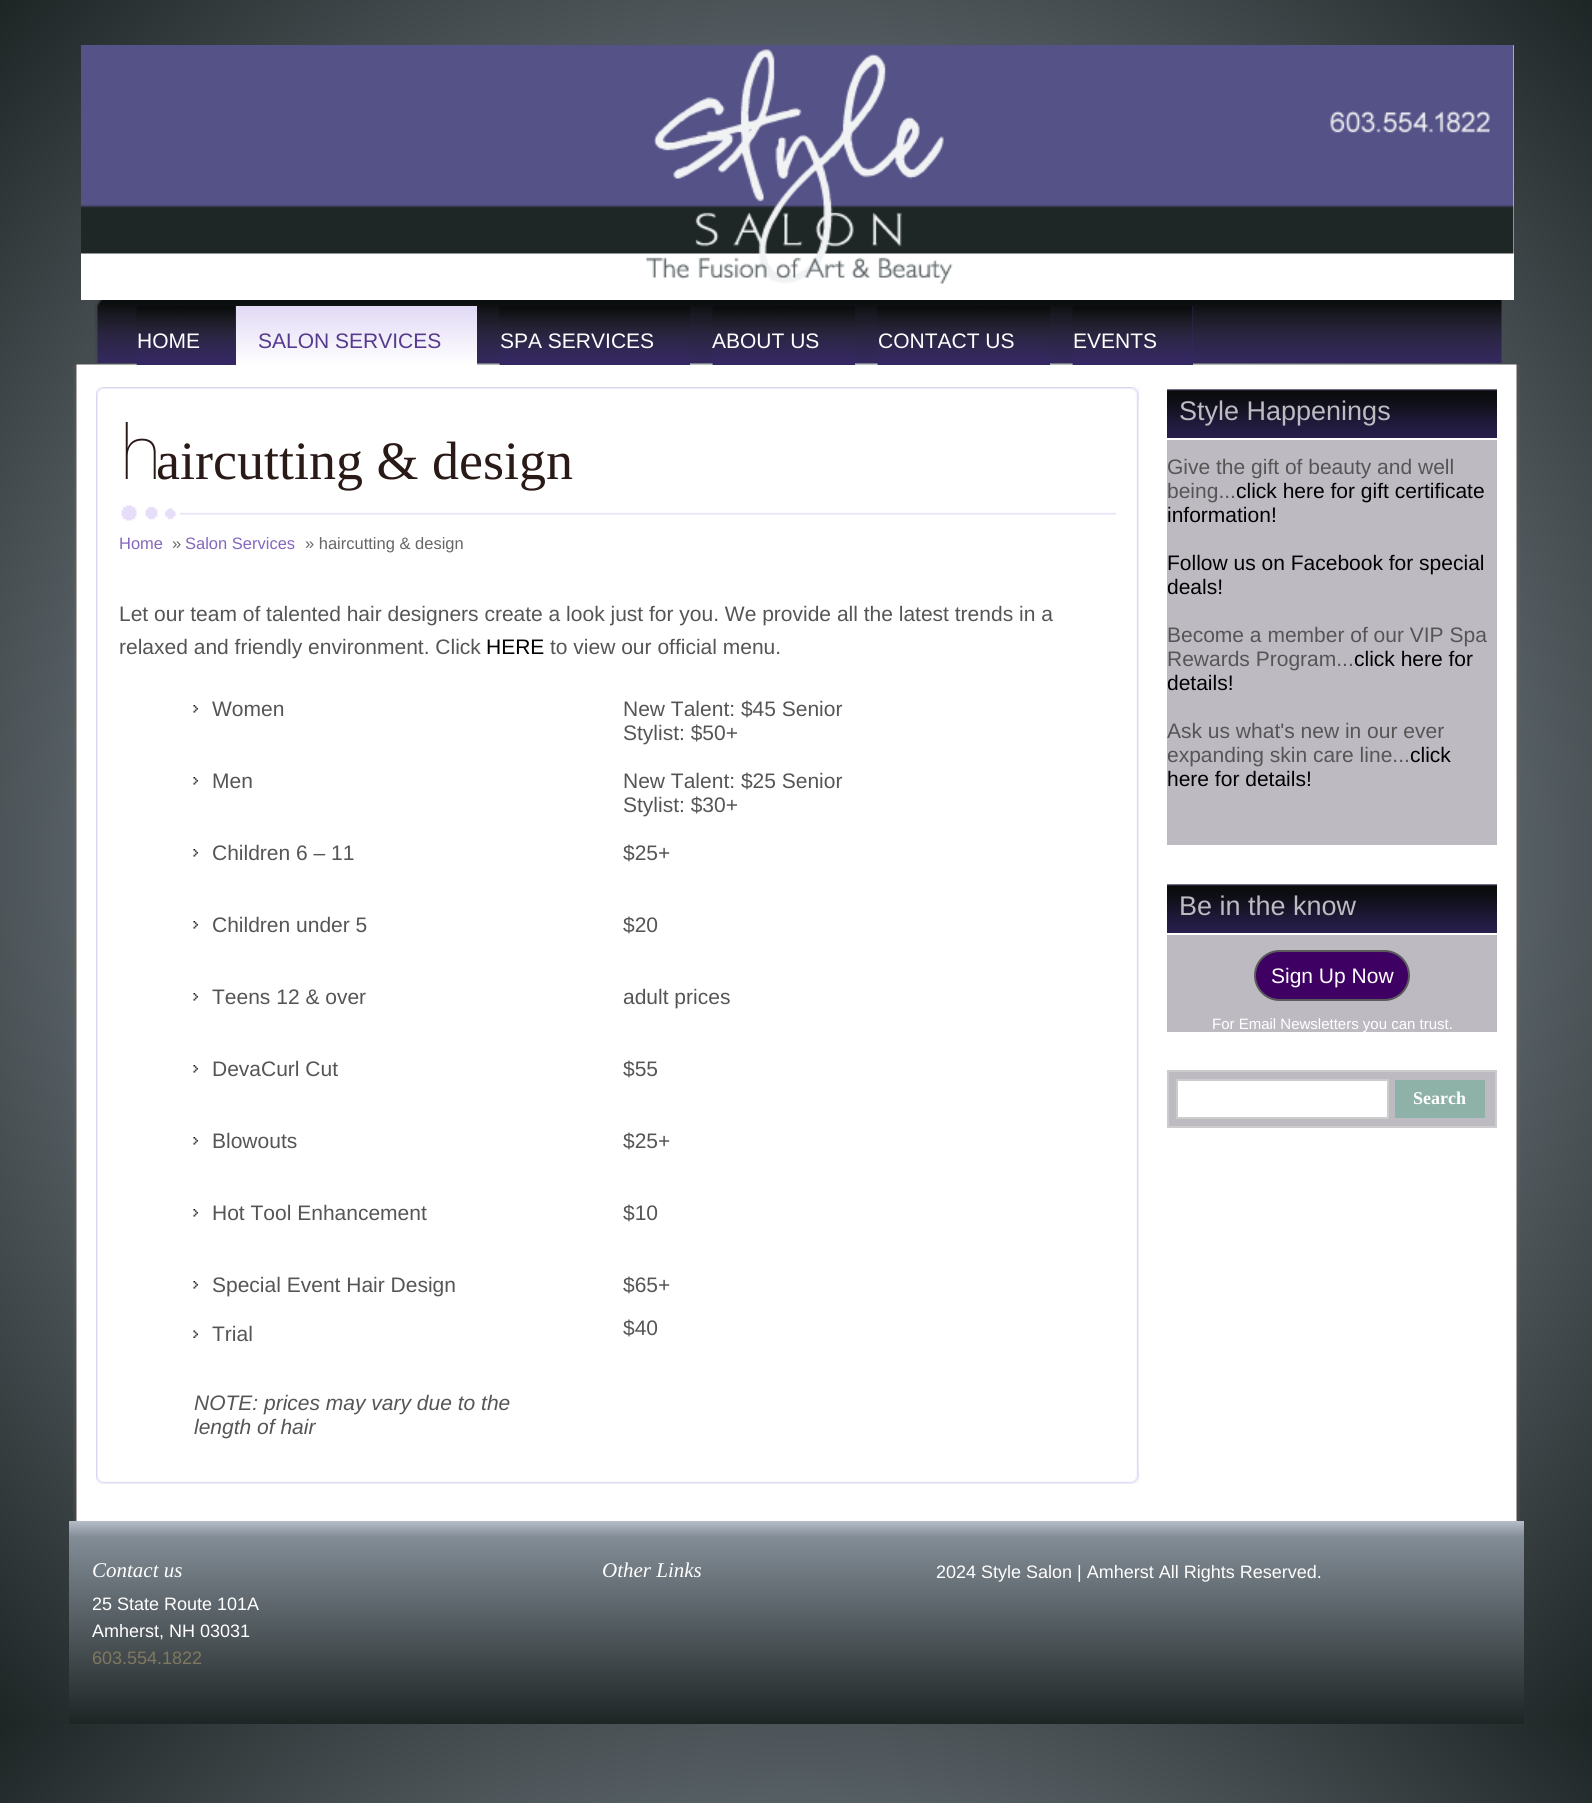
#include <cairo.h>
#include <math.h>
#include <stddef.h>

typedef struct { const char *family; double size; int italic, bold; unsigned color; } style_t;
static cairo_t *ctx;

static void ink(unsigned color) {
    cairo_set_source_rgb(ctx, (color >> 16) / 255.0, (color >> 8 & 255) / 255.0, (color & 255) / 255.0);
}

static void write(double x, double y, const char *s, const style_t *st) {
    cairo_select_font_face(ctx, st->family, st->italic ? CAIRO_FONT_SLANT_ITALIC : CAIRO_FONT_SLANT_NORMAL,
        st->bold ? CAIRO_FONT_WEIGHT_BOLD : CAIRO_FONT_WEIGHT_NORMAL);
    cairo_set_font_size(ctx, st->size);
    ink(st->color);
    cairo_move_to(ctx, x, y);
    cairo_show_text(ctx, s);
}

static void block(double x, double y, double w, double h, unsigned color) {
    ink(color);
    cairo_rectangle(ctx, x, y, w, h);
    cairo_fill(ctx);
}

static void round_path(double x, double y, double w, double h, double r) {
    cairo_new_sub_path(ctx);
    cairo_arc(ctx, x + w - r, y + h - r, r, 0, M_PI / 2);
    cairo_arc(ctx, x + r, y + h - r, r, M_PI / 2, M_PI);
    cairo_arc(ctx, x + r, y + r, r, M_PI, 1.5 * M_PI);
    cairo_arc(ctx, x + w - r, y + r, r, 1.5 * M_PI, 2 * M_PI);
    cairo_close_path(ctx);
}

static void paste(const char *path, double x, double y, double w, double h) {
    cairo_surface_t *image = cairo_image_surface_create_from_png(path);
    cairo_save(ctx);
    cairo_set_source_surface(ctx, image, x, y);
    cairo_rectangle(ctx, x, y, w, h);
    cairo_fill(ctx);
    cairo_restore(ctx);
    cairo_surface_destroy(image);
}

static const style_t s1 = {"Liberation Sans", 21, 0, 0, 0xffffff};
static const style_t s2 = {"Liberation Sans", 21, 0, 0, 0x553a90};
static const style_t s3 = {"Noto Sans Thin", 75, 0, 0, 0x291a17};
static const style_t s4 = {"Liberation Serif", 54, 0, 0, 0x291a17};
static const style_t s5 = {"Liberation Sans", 16.5, 0, 0, 0x8466bd};
static const style_t s6 = {"Liberation Sans", 16.5, 0, 0, 0x666666};
static const style_t s7 = {"Liberation Sans", 21, 0, 0, 0x555555};
static const style_t s8 = {"Liberation Sans", 21, 0, 0, 0x000000};
static const style_t s9 = {"Liberation Sans", 21, 1, 0, 0x555555};
static const style_t s10 = {"Liberation Sans", 27, 0, 0, 0xbdbac2};
static const style_t s11 = {"Liberation Sans", 15, 0, 0, 0xffffff};
static const style_t s12 = {"Liberation Serif", 18, 0, 1, 0xffffff};
static const style_t s13 = {"Liberation Serif", 21, 1, 0, 0xffffff};
static const style_t s14 = {"Liberation Sans", 18, 0, 0, 0xffffff};
static const style_t s15 = {"Liberation Sans", 18, 0, 0, 0x807860};

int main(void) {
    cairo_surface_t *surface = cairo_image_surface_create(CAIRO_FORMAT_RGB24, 1592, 1803);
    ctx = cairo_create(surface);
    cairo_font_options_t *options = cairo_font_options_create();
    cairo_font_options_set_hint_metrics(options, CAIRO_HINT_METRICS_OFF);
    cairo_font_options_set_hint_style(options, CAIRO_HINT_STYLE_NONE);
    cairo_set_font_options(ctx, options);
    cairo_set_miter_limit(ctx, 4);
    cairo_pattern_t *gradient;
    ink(0xffffff);
    cairo_paint(ctx);
    gradient = cairo_pattern_create_radial(0, 0, 0, 0, 0, 1);
    cairo_pattern_set_matrix(gradient, &(cairo_matrix_t){1.0 / 1126, 0, 0, 1.0 / 1219, -1.0 * 797 / 1126, -1.0 * 862 / 1219});
    cairo_pattern_add_color_stop_rgba(gradient, 0, 0.71, 0.741, 0.784, 1);
    cairo_pattern_add_color_stop_rgba(gradient, 0.36, 0.51, 0.549, 0.584, 1);
    cairo_pattern_add_color_stop_rgba(gradient, 1, 0.118, 0.145, 0.145, 1);
    cairo_set_source(ctx, gradient);
    cairo_pattern_destroy(gradient);
    cairo_rectangle(ctx, 0, 0, 1592, 1724);
    cairo_fill(ctx);
    gradient = cairo_pattern_create_radial(0, 0, 0, 0, 0, 1);
    cairo_pattern_set_matrix(gradient, &(cairo_matrix_t){1.0 / 1126, 0, 0, 1.0 / 1219, -1.0 * 797 / 1126, -1.0 * 2585 / 1219});
    cairo_pattern_add_color_stop_rgba(gradient, 0, 0.71, 0.741, 0.784, 1);
    cairo_pattern_add_color_stop_rgba(gradient, 0.36, 0.51, 0.549, 0.584, 1);
    cairo_pattern_add_color_stop_rgba(gradient, 1, 0.118, 0.145, 0.145, 1);
    cairo_set_source(ctx, gradient);
    cairo_pattern_destroy(gradient);
    cairo_rectangle(ctx, 0, 1724, 1592, 79);
    cairo_fill(ctx);
    block(81, 45, 1433, 255, 0xffffff);
    paste("pic1.png", 81, 45, 1433, 239);
    paste("pic2.png", 94, 300, 1408, 63);
    paste("pic8.png", 73, 364, 1447, 1157);
    block(137, 306, 99, 59, 0x342861);
    paste("pic3.png", 136, 306, 100, 59);
    write(137, 348, "HOME", &s1);
    gradient = cairo_pattern_create_linear(356, 306, 356, 365);
    cairo_pattern_add_color_stop_rgba(gradient, 0, 0.212, 0.125, 0.4, 1);
    cairo_pattern_add_color_stop_rgba(gradient, 0, 0.882, 0.851, 0.961, 1);
    cairo_pattern_add_color_stop_rgba(gradient, 1, 1, 1, 1, 1);
    cairo_set_source(ctx, gradient);
    cairo_pattern_destroy(gradient);
    cairo_rectangle(ctx, 236, 306, 241, 59);
    cairo_fill(ctx);
    write(258, 348, "SALON SERVICES", &s2);
    block(500, 364, 190, 1, 0x342861);
    paste("pic4.png", 499, 306, 191, 59);
    write(500, 348, "SPA SERVICES", &s1);
    block(713, 364, 142, 1, 0x342861);
    paste("pic5.png", 712, 306, 143, 59);
    write(712, 348, "ABOUT US", &s1);
    block(878, 364, 172, 1, 0x342861);
    paste("pic6.png", 877, 306, 173, 59);
    write(878, 348, "CONTACT US", &s1);
    block(1073, 306, 120, 59, 0x342861);
    paste("pic7.png", 1072, 306, 121, 59);
    write(1073, 348, "EVENTS", &s1);
    paste("pic9.png", 96, 387, 1043, 1097);
    paste("pic10.png", 96, 387, 1043, 14);
    paste("pic11.png", 96, 1470, 1043, 14);
    paste("pic12.png", 121, 505, 995, 16);
    write(119, 479, "h", &s3);
    write(156, 479, "aircutting & design", &s4);
    write(119, 549, "Home", &s5);
    write(172, 549, "»", &s6);
    write(185, 549, "Salon Services", &s5);
    write(305, 549, "» haircutting & design", &s6);
    write(119, 621, "Let our team of talented hair designers create a look just for you. We provide all the latest trends in a", &s7);
    write(119, 654, "relaxed and friendly environment. Click", &s7);
    write(486, 654, "HERE", &s8);
    write(550, 654, "to view our official menu.", &s7);
    paste("pic13.png", 193, 705, 5, 8);
    write(212, 716, "Women", &s7);
    write(623, 716, "New Talent: $45 Senior", &s7);
    write(623, 740, "Stylist: $50+", &s7);
    paste("pic13.png", 193, 777, 5, 8);
    write(212, 788, "Men", &s7);
    write(623, 788, "New Talent: $25 Senior", &s7);
    write(623, 812, "Stylist: $30+", &s7);
    paste("pic13.png", 193, 849, 5, 8);
    write(212, 860, "Children 6 – 11", &s7);
    write(623, 860, "$25+", &s7);
    paste("pic13.png", 193, 921, 5, 8);
    write(212, 932, "Children under 5", &s7);
    write(623, 932, "$20", &s7);
    paste("pic13.png", 193, 993, 5, 8);
    write(212, 1004, "Teens 12 & over", &s7);
    write(623, 1004, "adult prices", &s7);
    paste("pic13.png", 193, 1065, 5, 8);
    write(212, 1076, "DevaCurl Cut", &s7);
    write(623, 1076, "$55", &s7);
    paste("pic13.png", 193, 1137, 5, 8);
    write(212, 1148, "Blowouts", &s7);
    write(623, 1148, "$25+", &s7);
    paste("pic13.png", 193, 1209, 5, 8);
    write(212, 1220, "Hot Tool Enhancement", &s7);
    write(623, 1220, "$10", &s7);
    paste("pic13.png", 193, 1281, 5, 8);
    write(212, 1292, "Special Event Hair Design", &s7);
    paste("pic14.png", 193, 1330, 5, 8);
    write(212, 1341, "Trial", &s7);
    write(623, 1292, "$65+", &s7);
    write(623, 1335, "$40", &s7);
    write(194, 1410, "NOTE: prices may vary due to the", &s9);
    write(194, 1434, "length of hair", &s9);
    block(1167, 440, 330, 405, 0xbdbac2);
    block(1167, 389, 330, 2, 0xc3b3e6);
    paste("pic15.png", 1167, 389, 330, 49);
    write(1179, 420, "Style Happenings", &s10);
    write(1167, 474, "Give the gift of beauty and well", &s7);
    write(1167, 498, "being...", &s7);
    write(1236, 498, "click here for gift certificate", &s8);
    write(1167, 522, "information!", &s8);
    write(1167, 570, "Follow us on Facebook for special", &s8);
    write(1167, 594, "deals!", &s8);
    write(1167, 642, "Become a member of our VIP Spa", &s7);
    write(1167, 666, "Rewards Program...", &s7);
    write(1354, 666, "click here for", &s8);
    write(1167, 690, "details!", &s8);
    write(1167, 738, "Ask us what's new in our ever", &s7);
    write(1167, 762, "expanding skin care line...", &s7);
    write(1410, 762, "click", &s8);
    write(1167, 786, "here for details!", &s8);
    block(1167, 935, 330, 97, 0xbdbac2);
    block(1167, 884, 330, 2, 0xc3b3e6);
    paste("pic15.png", 1167, 884, 330, 49);
    write(1179, 915, "Be in the know", &s10);
    ink(0x3f0064);
    round_path(1255, 951, 154, 49, 24.5);
    cairo_fill_preserve(ctx);
    ink(0x5b5b5b);
    cairo_stroke(ctx);
    write(1271, 983, "Sign Up Now", &s1);
    write(1212, 1029, "For Email Newsletters you can trust.", &s11);
    ink(0xbdbac2);
    cairo_rectangle(ctx, 1168, 1071, 328, 56);
    cairo_fill_preserve(ctx);
    ink(0xcccccc);
    cairo_stroke(ctx);
    ink(0xffffff);
    cairo_rectangle(ctx, 1177, 1080, 211, 38);
    cairo_fill_preserve(ctx);
    ink(0xcccccc);
    cairo_stroke(ctx);
    block(1395, 1080, 90, 38, 0x8fb2a8);
    write(1413, 1104, "Search", &s12);
    gradient = cairo_pattern_create_linear(797, 1521, 797, 1724);
    cairo_pattern_add_color_stop_rgba(gradient, 0, 0.71, 0.741, 0.784, 1);
    cairo_pattern_add_color_stop_rgba(gradient, 0.08, 0.51, 0.549, 0.584, 1);
    cairo_pattern_add_color_stop_rgba(gradient, 1, 0.118, 0.145, 0.145, 1);
    cairo_set_source(ctx, gradient);
    cairo_pattern_destroy(gradient);
    cairo_rectangle(ctx, 69, 1521, 1455, 203);
    cairo_fill(ctx);
    write(92, 1577, "Contact us", &s13);
    write(92, 1610, "25 State Route 101A", &s14);
    write(92, 1637, "Amherst, NH 03031", &s14);
    write(92, 1664, "603.554.1822", &s15);
    write(602, 1577, "Other Links", &s13);
    write(936, 1578, "2024 Style Salon | Amherst All Rights Reserved.", &s14);
    cairo_surface_write_to_png(surface, "screenshot.png");
    cairo_font_options_destroy(options);
    cairo_destroy(ctx);
    cairo_surface_destroy(surface);
    return 0;
}
